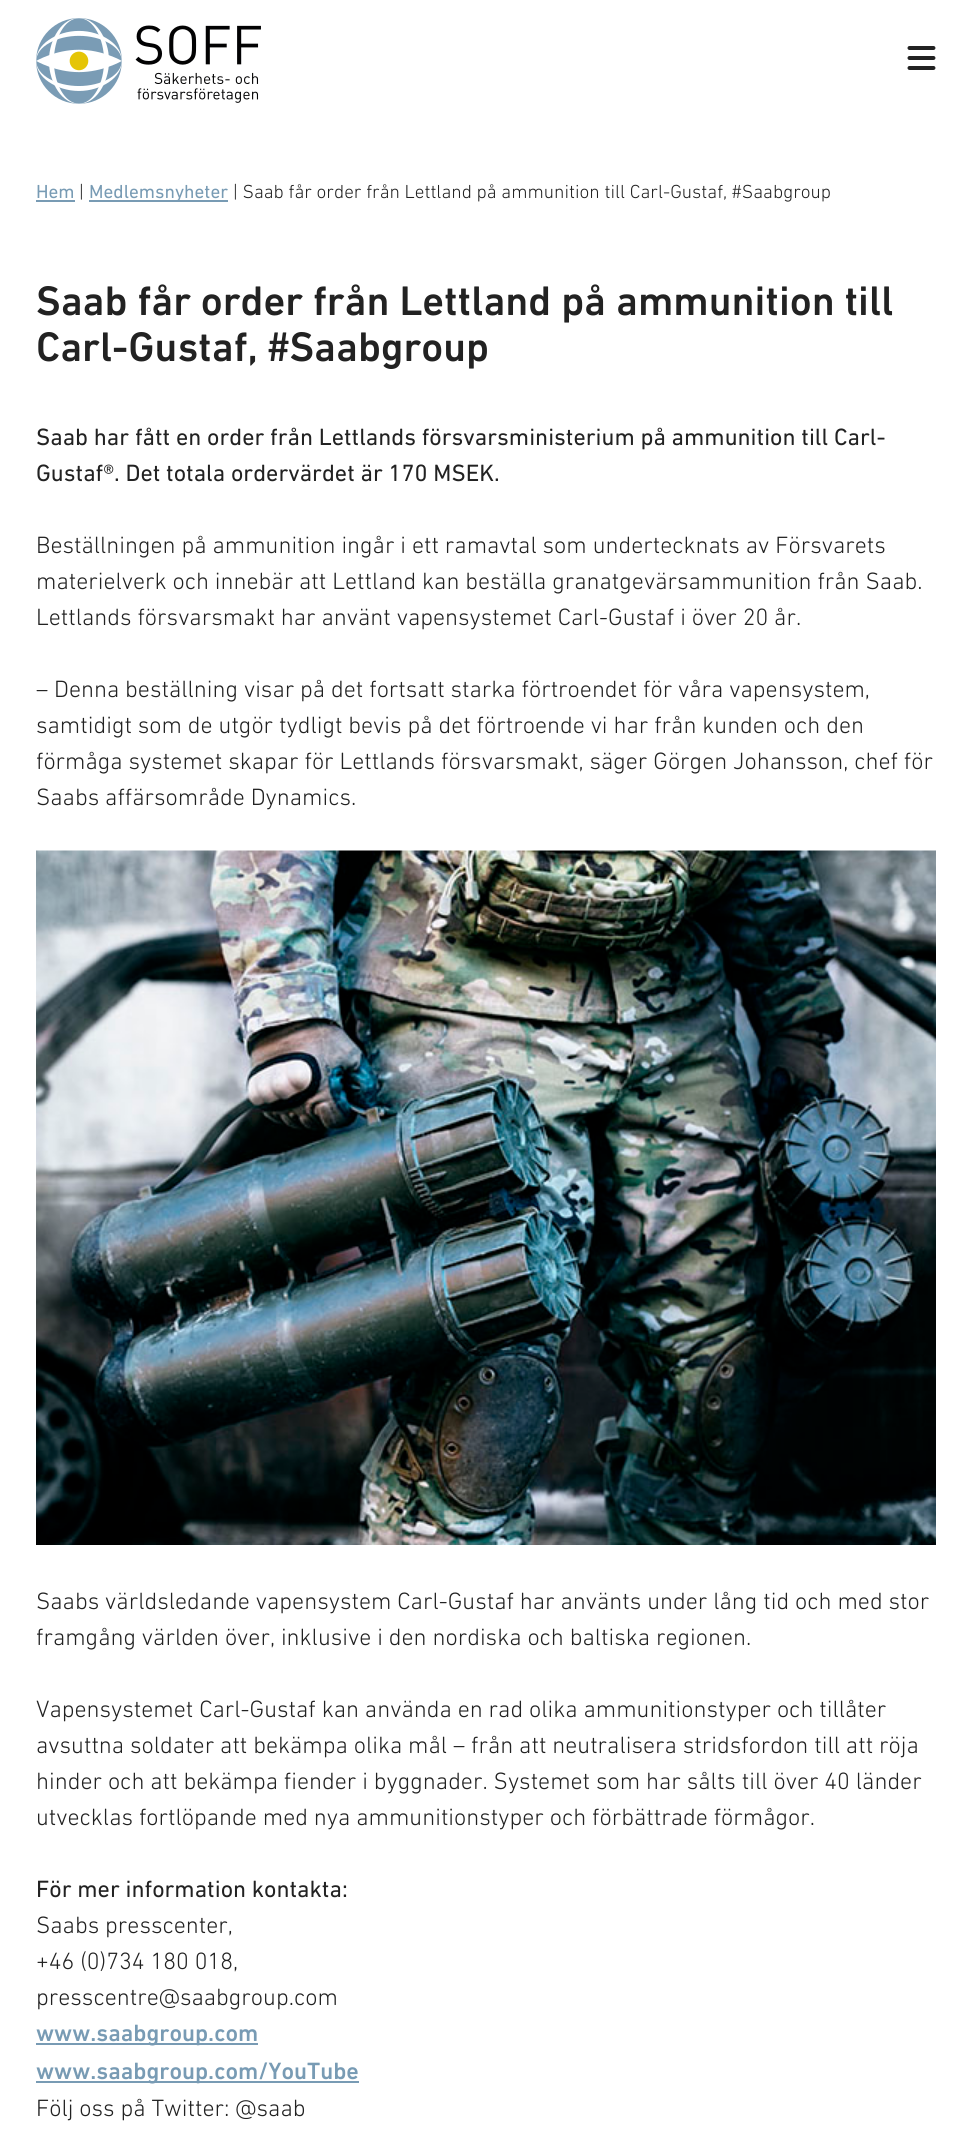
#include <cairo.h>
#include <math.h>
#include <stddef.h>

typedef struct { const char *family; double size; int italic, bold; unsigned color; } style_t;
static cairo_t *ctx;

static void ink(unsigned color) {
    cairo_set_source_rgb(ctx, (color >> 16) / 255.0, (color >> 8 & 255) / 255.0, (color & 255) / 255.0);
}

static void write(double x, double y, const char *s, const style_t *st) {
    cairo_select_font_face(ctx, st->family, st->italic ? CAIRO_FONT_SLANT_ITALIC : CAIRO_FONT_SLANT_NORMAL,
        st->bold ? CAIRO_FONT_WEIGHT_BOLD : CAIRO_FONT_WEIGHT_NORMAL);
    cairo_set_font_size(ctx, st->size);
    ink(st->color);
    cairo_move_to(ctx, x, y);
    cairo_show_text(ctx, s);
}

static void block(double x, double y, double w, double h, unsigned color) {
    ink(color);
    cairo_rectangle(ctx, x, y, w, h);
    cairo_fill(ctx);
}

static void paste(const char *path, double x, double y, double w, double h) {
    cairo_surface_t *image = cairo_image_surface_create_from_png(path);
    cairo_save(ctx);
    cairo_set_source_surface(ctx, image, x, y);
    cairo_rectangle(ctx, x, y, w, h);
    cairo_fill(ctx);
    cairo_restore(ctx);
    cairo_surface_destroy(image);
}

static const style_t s1 = {"DIN Next", 19.2, 0, 0, 0x789bb4};
static const style_t s2 = {"DIN Next Light", 19.2, 0, 0, 0x222222};
static const style_t s3 = {"DIN Next Medium", 42, 0, 0, 0x222222};
static const style_t s4 = {"DIN Next", 24, 0, 0, 0x222222};
static const style_t s5 = {"DIN Next Light", 24, 0, 0, 0x222222};
static const style_t s6 = {"DIN Next Medium", 24, 0, 0, 0x789bb4};

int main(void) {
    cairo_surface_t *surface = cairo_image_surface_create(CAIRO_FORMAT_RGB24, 971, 2140);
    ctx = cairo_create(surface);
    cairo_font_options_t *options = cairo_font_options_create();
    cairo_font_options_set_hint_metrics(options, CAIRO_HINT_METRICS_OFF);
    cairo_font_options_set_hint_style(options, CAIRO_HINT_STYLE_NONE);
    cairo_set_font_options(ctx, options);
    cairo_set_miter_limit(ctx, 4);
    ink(0xffffff);
    cairo_paint(ctx);
    paste("pic1.png", 36, 18, 225, 86);
    paste("pic2.png", 907, 46, 29, 24);
    write(36, 198, "Hem", &s1);
    block(36, 200, 39, 2, 0x789bb4);
    write(79, 198, "|", &s2);
    block(89, 200, 139, 2, 0x789bb4);
    write(89, 198, "Medlemsnyheter", &s1);
    write(233, 198, "| Saab får order från Lettland på ammunition till Carl-Gustaf, #Saabgroup", &s2);
    write(36, 315, "Saab får order från Lettland på ammunition till", &s3);
    write(36, 361, "Carl-Gustaf, #Saabgroup", &s3);
    write(36, 445, "Saab har fått en order från Lettlands försvarsministerium på ammunition till Carl-", &s4);
    write(36, 481, "Gustaf®. Det totala ordervärdet är 170 MSEK.", &s4);
    write(36, 553, "Beställningen på ammunition ingår i ett ramavtal som undertecknats av Försvarets", &s5);
    write(36, 589, "materielverk och innebär att Lettland kan beställa granatgevärsammunition från Saab.", &s5);
    write(36, 625, "Lettlands försvarsmakt har använt vapensystemet Carl-Gustaf i över 20 år.", &s5);
    write(36, 697, "– Denna beställning visar på det fortsatt starka förtroendet för våra vapensystem,", &s5);
    write(36, 733, "samtidigt som de utgör tydligt bevis på det förtroende vi har från kunden och den", &s5);
    write(36, 769, "förmåga systemet skapar för Lettlands försvarsmakt, säger Görgen Johansson, chef för", &s5);
    write(36, 805, "Saabs affärsområde Dynamics.", &s5);
    paste("pic3.png", 36, 850, 900, 695);
    write(36, 1609, "Saabs världsledande vapensystem Carl-Gustaf har använts under lång tid och med stor", &s5);
    write(36, 1645, "framgång världen över, inklusive i den nordiska och baltiska regionen.", &s5);
    write(36, 1717, "Vapensystemet Carl-Gustaf kan använda en rad olika ammunitionstyper och tillåter", &s5);
    write(36, 1753, "avsuttna soldater att bekämpa olika mål – från att neutralisera stridsfordon till att röja", &s5);
    write(36, 1789, "hinder och att bekämpa fiender i byggnader. Systemet som har sålts till över 40 länder", &s5);
    write(36, 1825, "utvecklas fortlöpande med nya ammunitionstyper och förbättrade förmågor.", &s5);
    write(36, 1897, "För mer information kontakta:", &s4);
    write(36, 1933, "Saabs presscenter,", &s5);
    write(36, 1969, "+46 (0)734 180 018,", &s5);
    write(36, 2005, "presscentre@saabgroup.com", &s5);
    block(36, 2043, 222, 2, 0x789bb4);
    write(36, 2041, "www.saabgroup.com", &s6);
    block(36, 2081, 323, 2, 0x789bb4);
    write(36, 2079, "www.saabgroup.com/YouTube", &s6);
    write(36, 2116, "Följ oss på Twitter: @saab", &s5);
    cairo_surface_write_to_png(surface, "screenshot.png");
    cairo_font_options_destroy(options);
    cairo_destroy(ctx);
    cairo_surface_destroy(surface);
    return 0;
}
